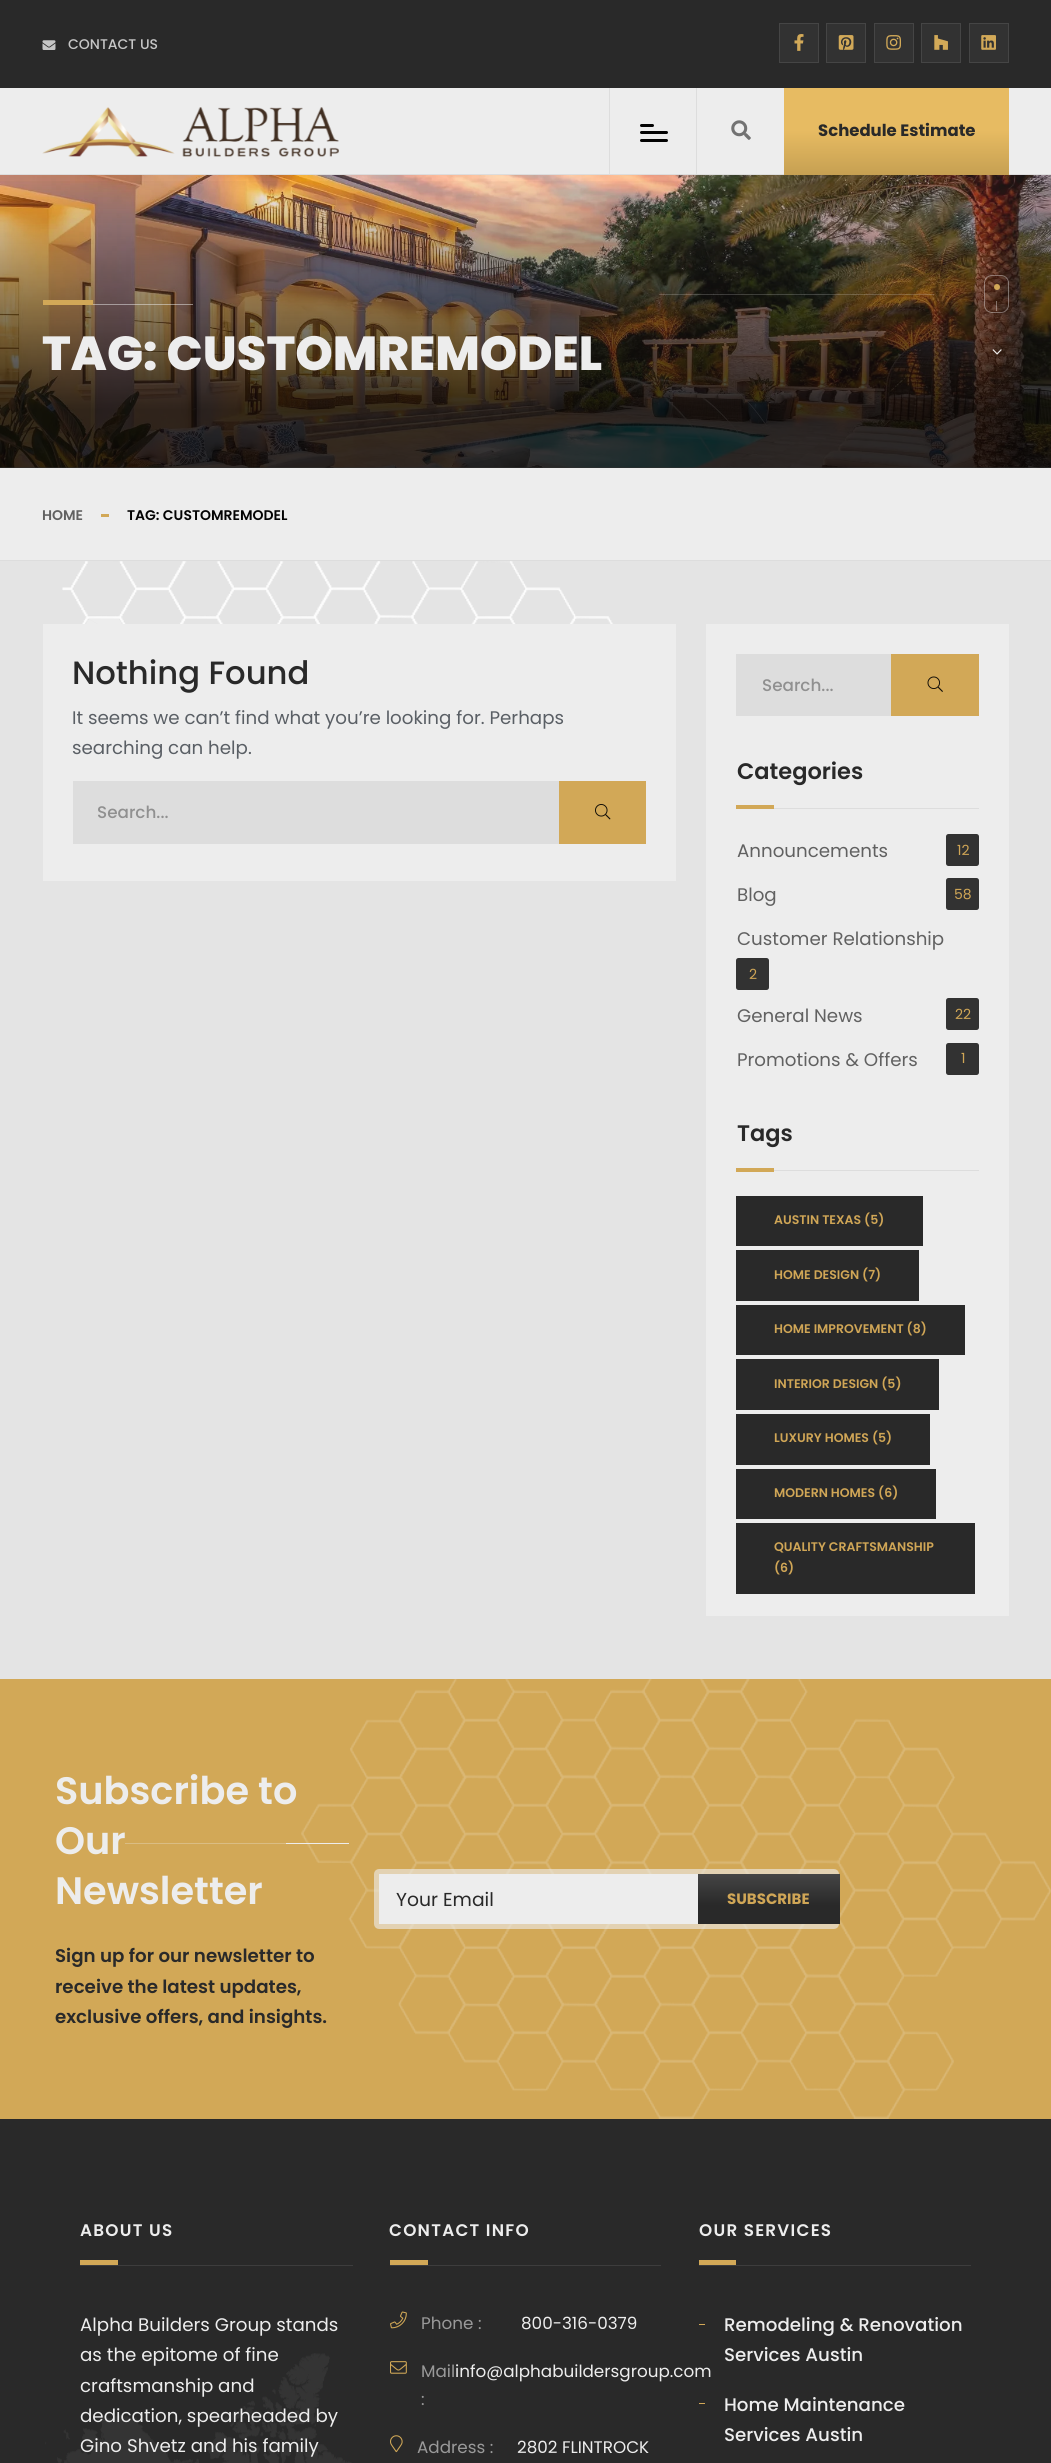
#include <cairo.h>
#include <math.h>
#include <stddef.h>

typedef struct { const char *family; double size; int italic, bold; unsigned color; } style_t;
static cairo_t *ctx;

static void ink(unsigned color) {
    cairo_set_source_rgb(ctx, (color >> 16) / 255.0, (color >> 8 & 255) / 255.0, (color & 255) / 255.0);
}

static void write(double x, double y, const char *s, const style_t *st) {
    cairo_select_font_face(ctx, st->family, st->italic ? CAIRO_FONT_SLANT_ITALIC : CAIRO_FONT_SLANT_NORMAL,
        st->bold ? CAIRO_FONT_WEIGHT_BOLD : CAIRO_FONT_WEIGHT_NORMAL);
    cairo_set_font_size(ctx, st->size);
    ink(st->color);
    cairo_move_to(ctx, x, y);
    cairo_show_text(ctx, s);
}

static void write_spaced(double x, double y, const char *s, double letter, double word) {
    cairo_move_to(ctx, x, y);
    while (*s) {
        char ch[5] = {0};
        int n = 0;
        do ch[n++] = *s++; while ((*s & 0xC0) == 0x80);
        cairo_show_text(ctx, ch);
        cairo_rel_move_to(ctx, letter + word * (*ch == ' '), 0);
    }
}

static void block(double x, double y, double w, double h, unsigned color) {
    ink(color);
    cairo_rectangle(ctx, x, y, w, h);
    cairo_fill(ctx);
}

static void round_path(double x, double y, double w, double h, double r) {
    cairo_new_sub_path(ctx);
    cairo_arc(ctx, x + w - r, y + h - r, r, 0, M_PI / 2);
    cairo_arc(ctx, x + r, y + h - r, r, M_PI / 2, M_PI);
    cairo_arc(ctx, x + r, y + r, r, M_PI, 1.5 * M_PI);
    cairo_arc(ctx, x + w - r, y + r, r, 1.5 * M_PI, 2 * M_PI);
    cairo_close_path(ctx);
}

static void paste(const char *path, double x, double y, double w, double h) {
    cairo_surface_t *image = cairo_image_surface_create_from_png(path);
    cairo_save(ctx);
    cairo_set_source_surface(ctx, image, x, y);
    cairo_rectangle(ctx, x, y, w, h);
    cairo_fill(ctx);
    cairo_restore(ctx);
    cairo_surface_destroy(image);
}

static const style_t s1 = {"Poppins Medium", 14, 0, 0, 0xc6c6c6};
static const style_t s2 = {"Poppins", 16.5, 0, 1, 0x292929};
static const style_t s3 = {"Poppins ExtraBold", 47.75, 0, 0, 0xededed};
static const style_t s4 = {"Poppins SemiBold", 14, 0, 0, 0x616161};
static const style_t s5 = {"Poppins SemiBold", 14, 0, 0, 0x030303};
static const style_t s6 = {"Poppins Medium", 32.25, 0, 0, 0x292929};
static const style_t s7 = {"Poppins", 18.25, 0, 0, 0x5a5f65};
static const style_t s8 = {"Poppins Medium", 16.8, 0, 0, 0x909090};
static const style_t s9 = {"Poppins SemiBold", 22.5, 0, 0, 0x292929};
static const style_t s10 = {"Poppins", 18.25, 0, 0, 0x616161};
static const style_t s11 = {"Poppins", 14, 0, 0, 0xd0a656};
static const style_t s12 = {"Poppins SemiBold", 12.5, 0, 0, 0xd0a656};
static const style_t s13 = {"Poppins SemiBold", 38.25, 0, 0, 0xededed};
static const style_t s14 = {"Poppins SemiBold", 18.25, 0, 0, 0x292929};
static const style_t s15 = {"Poppins", 18.75, 0, 0, 0x292929};
static const style_t s16 = {"Poppins", 15, 0, 1, 0xd0a656};
static const style_t s17 = {"Poppins", 18.25, 0, 0, 0xededed};
static const style_t s18 = {"Poppins", 16.8, 0, 0, 0x999999};
static const style_t s19 = {"Poppins", 16.8, 0, 0, 0xededed};
static const style_t s20 = {"Poppins Medium", 18.25, 0, 0, 0xededed};

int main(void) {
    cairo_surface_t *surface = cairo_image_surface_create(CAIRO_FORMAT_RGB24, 1051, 2463);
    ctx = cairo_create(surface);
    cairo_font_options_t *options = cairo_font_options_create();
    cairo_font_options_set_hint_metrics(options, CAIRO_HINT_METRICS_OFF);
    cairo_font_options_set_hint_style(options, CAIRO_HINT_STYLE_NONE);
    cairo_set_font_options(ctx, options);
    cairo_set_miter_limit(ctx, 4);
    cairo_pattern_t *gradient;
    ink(0xd2a857);
    cairo_paint(ctx);
    block(0, 0, 1051, 88, 0x292929);
    paste("pic1.png", 42, 40, 14, 10);
    write(68, 49, "CONTACT US", &s1);
    ink(0x323232);
    cairo_rectangle(ctx, 779.5, 23.5, 39, 39);
    cairo_fill_preserve(ctx);
    ink(0x454545);
    cairo_set_line_width(ctx, 1);
    cairo_stroke(ctx);
    paste("pic2.png", 794, 34, 10, 17);
    ink(0x323232);
    cairo_rectangle(ctx, 826.5, 23.5, 39, 39);
    cairo_fill_preserve(ctx);
    ink(0x454545);
    cairo_stroke(ctx);
    paste("pic3.png", 838, 35, 16, 15);
    ink(0x323232);
    cairo_rectangle(ctx, 874.5, 23.5, 39, 39);
    cairo_fill_preserve(ctx);
    ink(0x454545);
    cairo_stroke(ctx);
    paste("pic4.png", 886, 35, 15, 15);
    ink(0x323232);
    cairo_rectangle(ctx, 921.5, 23.5, 39, 39);
    cairo_fill_preserve(ctx);
    ink(0x454545);
    cairo_stroke(ctx);
    paste("pic5.png", 934, 35, 14, 15);
    ink(0x323232);
    cairo_rectangle(ctx, 969.5, 23.5, 39, 39);
    cairo_fill_preserve(ctx);
    ink(0x454545);
    cairo_stroke(ctx);
    paste("pic6.png", 981, 35, 15, 15);
    block(0, 88, 1051, 86, 0xededed);
    block(0, 174, 1051, 1, 0xdddddd);
    paste("pic7.png", 42, 107, 297, 50);
    block(609, 88, 1, 87, 0xdddddd);
    ink(0x030303);
    round_path(640, 124, 14, 3, 1.5);
    cairo_fill(ctx);
    round_path(640, 131, 28, 3, 1.5);
    cairo_fill(ctx);
    round_path(640, 139, 28, 3, 1.5);
    cairo_fill(ctx);
    block(696, 88, 1, 87, 0xdddddd);
    paste("pic8.png", 731, 120, 20, 20);
    gradient = cairo_pattern_create_linear(896, 175, 896, 88);
    cairo_pattern_add_color_stop_rgba(gradient, 0, 0.776, 0.627, 0.322, 1);
    cairo_pattern_add_color_stop_rgba(gradient, 0.51, 0.906, 0.733, 0.384, 1);
    cairo_set_source(ctx, gradient);
    cairo_pattern_destroy(gradient);
    cairo_rectangle(ctx, 784, 88, 225, 87);
    cairo_fill(ctx);
    write(818, 136, "Schedule Estimate", &s2);
    block(0, 175, 1051, 385, 0xededed);
    paste("pic9.png", 0, 175, 1051, 293);
    gradient = cairo_pattern_create_linear(526, 175, 526, 468);
    cairo_pattern_add_color_stop_rgba(gradient, 0, 0.012, 0.012, 0.012, 0);
    cairo_pattern_add_color_stop_rgba(gradient, 0.8, 0.012, 0.012, 0.012, 0.8);
    cairo_set_source(ctx, gradient);
    cairo_pattern_destroy(gradient);
    cairo_rectangle(ctx, 0, 181, 1051, 287);
    cairo_fill(ctx);
    cairo_set_source_rgba(ctx, 0.929, 0.929, 0.929, 0.2);
    cairo_rectangle(ctx, 659, 294, 275, 1);
    cairo_fill(ctx);
    round_path(984.5, 275.5, 24, 37, 7.5);
    cairo_set_source_rgba(ctx, 0.929, 0.929, 0.929, 0.4);
    cairo_stroke(ctx);
    ink(0xd2a857);
    cairo_arc(ctx, 997, 287, 3, 0, 2 * M_PI);
    cairo_fill(ctx);
    cairo_set_source_rgba(ctx, 0.929, 0.929, 0.929, 0.4);
    cairo_rectangle(ctx, 996, 301, 1, 10);
    cairo_fill(ctx);
    paste("pic10.png", 992, 349, 10, 6);
    block(43, 300, 50, 5, 0xd2a857);
    cairo_set_source_rgba(ctx, 0.929, 0.929, 0.929, 0.5);
    cairo_rectangle(ctx, 93, 304, 100, 1);
    cairo_fill(ctx);
    write(42, 370, "TAG: CUSTOMREMODEL", &s3);
    block(0, 560, 1051, 1, 0xdddddd);
    write(42, 520, "HOME", &s4);
    block(101, 514, 8, 3, 0xd2a857);
    write(127, 520, "TAG: CUSTOMREMODEL", &s5);
    block(0, 561, 1051, 1118, 0xe4e4e4);
    paste("pic11.png", 62, 561, 552, 63);
    ink(0xededed);
    cairo_new_path(ctx);
    cairo_move_to(ctx, 89, 619);
    cairo_line_to(ctx, 135, 646);
    cairo_line_to(ctx, 120, 673);
    cairo_line_to(ctx, 73, 646);
    cairo_close_path(ctx);
    cairo_fill(ctx);
    cairo_new_path(ctx);
    cairo_move_to(ctx, 134, 645);
    cairo_line_to(ctx, 89, 619);
    cairo_line_to(ctx, 119, 619);
    cairo_close_path(ctx);
    cairo_fill(ctx);
    block(43, 624, 633, 257, 0xededed);
    write(72, 684, "Nothing Found", &s6);
    write(72, 724, "It seems we can’t find what you’re looking for. Perhaps", &s7);
    write(72, 754, "searching can help.", &s7);
    block(73, 781, 486, 63, 0xdddddd);
    write(97, 818, "Search...", &s8);
    block(559, 781, 87, 63, 0xd2a857);
    paste("pic12.png", 595, 804, 16, 16);
    block(706, 624, 303, 992, 0xededed);
    block(736, 654, 155, 62, 0xdddddd);
    write(762, 691, "Search...", &s8);
    block(891, 654, 88, 62, 0xd2a857);
    paste("pic13.png", 927, 676, 16, 16);
    block(774, 808, 205, 1, 0xdddddd);
    write(737, 779, "Categories", &s9);
    block(736, 805, 38, 4, 0xd2a857);
    write(737, 857, "Announcements", &s10);
    ink(0x323232);
    round_path(946, 834, 33, 32, 2.5);
    cairo_fill(ctx);
    write(957, 855, "12", &s11);
    write(737, 901, "Blog", &s10);
    ink(0x323232);
    round_path(946, 878, 33, 32, 2.5);
    cairo_fill(ctx);
    write(954, 899, "58", &s11);
    write(737, 945, "Customer Relationship", &s10);
    ink(0x323232);
    round_path(736, 958, 33, 32, 2.5);
    cairo_fill(ctx);
    write(749, 979, "2", &s11);
    write(737, 1022, "General News", &s10);
    ink(0x323232);
    round_path(946, 998, 33, 32, 2.5);
    cairo_fill(ctx);
    write(955, 1019, "22", &s11);
    write(737, 1066, "Promotions & Offers", &s10);
    ink(0x323232);
    round_path(946, 1043, 33, 32, 2.5);
    cairo_fill(ctx);
    write(961, 1063, "1", &s11);
    block(774, 1170, 205, 1, 0xdddddd);
    write(737, 1141, "Tags", &s9);
    block(736, 1168, 38, 4, 0xd2a857);
    block(736, 1196, 187, 50, 0x292929);
    write(774, 1224, "AUSTIN TEXAS (5)", &s12);
    block(736, 1250, 183, 51, 0x292929);
    write(774, 1279, "HOME DESIGN (7)", &s12);
    block(736, 1305, 229, 50, 0x292929);
    write(774, 1333, "HOME IMPROVEMENT (8)", &s12);
    block(736, 1359, 203, 51, 0x292929);
    write(774, 1388, "INTERIOR DESIGN (5)", &s12);
    block(736, 1414, 194, 51, 0x292929);
    write(774, 1442, "LUXURY HOMES (5)", &s12);
    block(736, 1469, 200, 50, 0x292929);
    write(774, 1497, "MODERN HOMES (6)", &s12);
    block(736, 1523, 239, 71, 0x292929);
    write(774, 1551, "QUALITY CRAFTSMANSHIP", &s12);
    write(774, 1572, "(6)", &s12);
    paste("pic14.png", 301, 1679, 750, 440);
    write(55, 1804, "Subscribe to", &s13);
    write(55, 1854, "Our", &s13);
    cairo_set_source_rgba(ctx, 0.929, 0.929, 0.929, 0.3);
    cairo_rectangle(ctx, 125, 1843, 161, 1);
    cairo_fill(ctx);
    block(286, 1843, 63, 1, 0xededed);
    write(55, 1904, "Newsletter", &s13);
    write(55, 1962, "Sign up for our newsletter to", &s14);
    write(55, 1993, "receive the latest updates,", &s14);
    write(55, 2023, "exclusive offers, and insights.", &s14);
    round_path(376.5, 1871.5, 460, 55, 2.5);
    cairo_set_source_rgba(ctx, 0.929, 0.929, 0.929, 0.61);
    cairo_set_line_width(ctx, 5);
    cairo_stroke(ctx);
    block(379, 1874, 319, 50, 0xededed);
    write(396, 1906, "Your Email", &s15);
    gradient = cairo_pattern_create_linear(769, 1874, 769, 1924);
    cairo_pattern_add_color_stop_rgba(gradient, 0, 0.271, 0.271, 0.271, 1);
    cairo_pattern_add_color_stop_rgba(gradient, 0.62, 0.161, 0.161, 0.161, 1);
    cairo_set_source(ctx, gradient);
    cairo_pattern_destroy(gradient);
    cairo_rectangle(ctx, 698, 1874, 142, 50);
    cairo_fill(ctx);
    write(727, 1904, "SUBSCRIBE", &s16);
    block(0, 2119, 1051, 344, 0x292929);
    cairo_select_font_face(ctx, "Poppins SemiBold", CAIRO_FONT_SLANT_NORMAL, CAIRO_FONT_WEIGHT_NORMAL);
    cairo_set_font_size(ctx, 16.8);
    ink(0xededed);
    write_spaced(80, 2236, "ABOUT US", 1.25, 0);
    block(80, 2260, 38, 5, 0xd2a857);
    block(80, 2265, 273, 1, 0x3d3d3d);
    write(80, 2331, "Alpha Builders Group stands", &s17);
    paste("pic18.png", 45, 2353, 307, 110);
    write(80, 2361, "as the epitome of fine", &s17);
    write(80, 2392, "craftsmanship and", &s17);
    write(80, 2422, "dedication, spearheaded by", &s17);
    write(80, 2452, "Gino Shvetz and his family", &s17);
    cairo_select_font_face(ctx, "Poppins SemiBold", CAIRO_FONT_SLANT_NORMAL, CAIRO_FONT_WEIGHT_NORMAL);
    cairo_set_font_size(ctx, 16.8);
    write_spaced(389, 2236, "CONTACT INFO", 1.25, 0);
    block(390, 2260, 38, 5, 0xd2a857);
    block(390, 2265, 271, 1, 0x3d3d3d);
    paste("pic15.png", 390, 2311, 17, 18);
    write(421, 2329, "Phone :", &s18);
    write(521, 2329, "800-316-0379", &s19);
    paste("pic16.png", 390, 2361, 17, 13);
    write(421, 2377, "Mail", &s18);
    write(421, 2405, ":", &s18);
    write(455, 2377, "info@alphabuildersgroup.com", &s19);
    paste("pic17.png", 390, 2435, 13, 18);
    write(417, 2453, "Address :", &s18);
    write(517, 2453, "2802 FLINTROCK", &s19);
    cairo_select_font_face(ctx, "Poppins SemiBold", CAIRO_FONT_SLANT_NORMAL, CAIRO_FONT_WEIGHT_NORMAL);
    write_spaced(699, 2236, "OUR SERVICES", 1.25, 0);
    block(699, 2260, 37, 5, 0xd2a857);
    block(699, 2265, 272, 1, 0x3d3d3d);
    block(699, 2324, 6, 1, 0xd2a857);
    write(724, 2331, "Remodeling & Renovation", &s20);
    write(724, 2361, "Services Austin", &s20);
    block(699, 2403, 6, 1, 0xd2a857);
    write(724, 2411, "Home Maintenance", &s20);
    write(724, 2441, "Services Austin", &s20);
    cairo_surface_write_to_png(surface, "screenshot.png");
    cairo_font_options_destroy(options);
    cairo_destroy(ctx);
    cairo_surface_destroy(surface);
    return 0;
}
